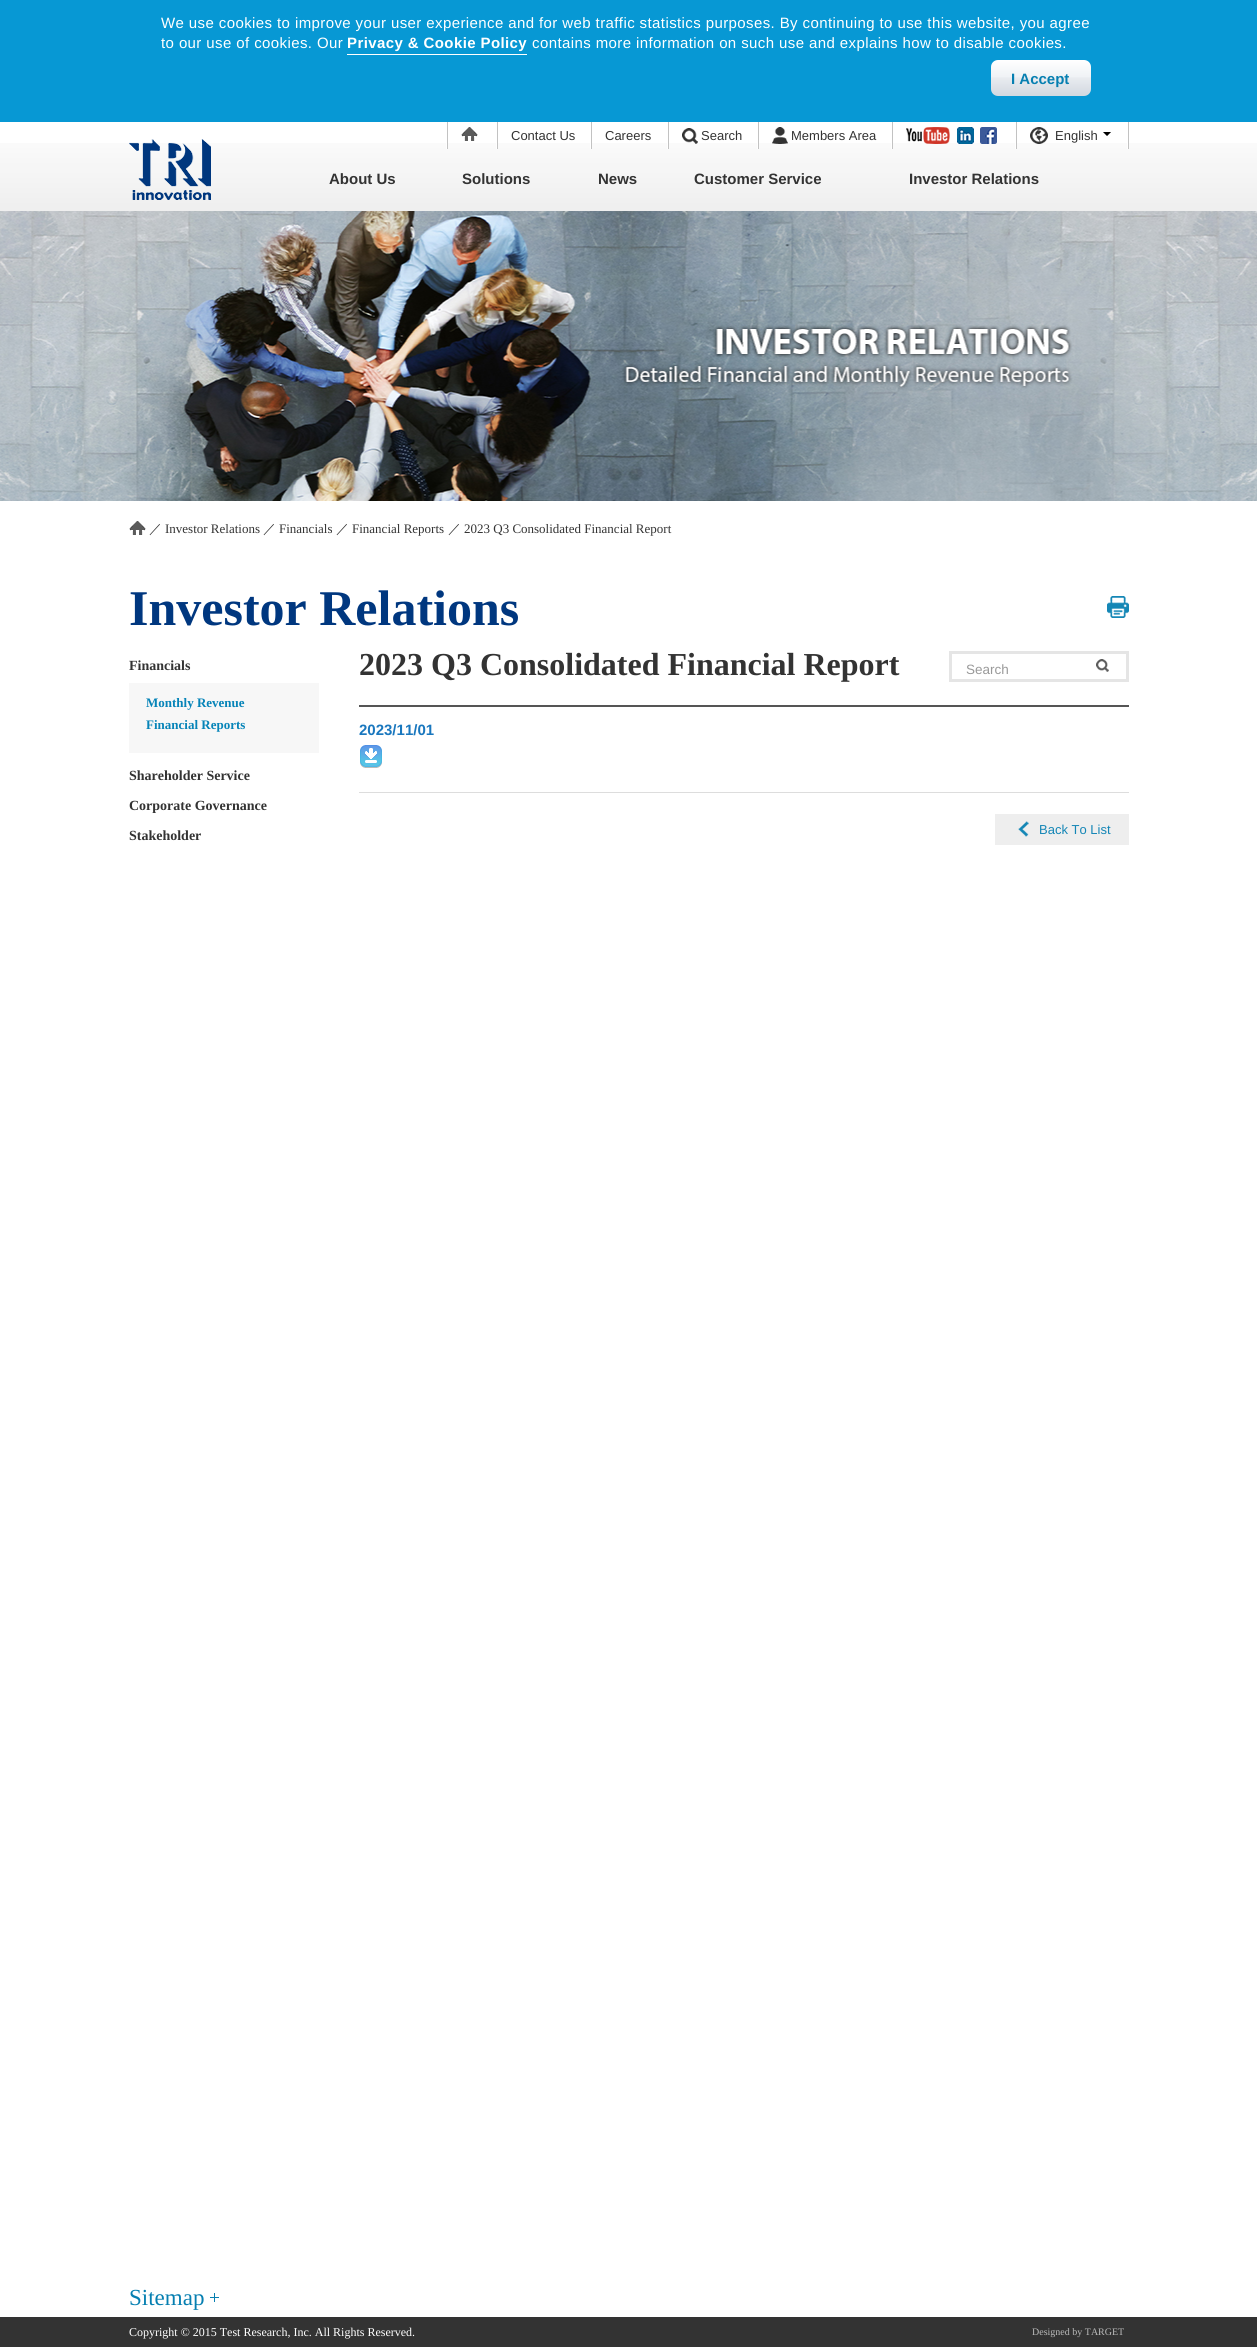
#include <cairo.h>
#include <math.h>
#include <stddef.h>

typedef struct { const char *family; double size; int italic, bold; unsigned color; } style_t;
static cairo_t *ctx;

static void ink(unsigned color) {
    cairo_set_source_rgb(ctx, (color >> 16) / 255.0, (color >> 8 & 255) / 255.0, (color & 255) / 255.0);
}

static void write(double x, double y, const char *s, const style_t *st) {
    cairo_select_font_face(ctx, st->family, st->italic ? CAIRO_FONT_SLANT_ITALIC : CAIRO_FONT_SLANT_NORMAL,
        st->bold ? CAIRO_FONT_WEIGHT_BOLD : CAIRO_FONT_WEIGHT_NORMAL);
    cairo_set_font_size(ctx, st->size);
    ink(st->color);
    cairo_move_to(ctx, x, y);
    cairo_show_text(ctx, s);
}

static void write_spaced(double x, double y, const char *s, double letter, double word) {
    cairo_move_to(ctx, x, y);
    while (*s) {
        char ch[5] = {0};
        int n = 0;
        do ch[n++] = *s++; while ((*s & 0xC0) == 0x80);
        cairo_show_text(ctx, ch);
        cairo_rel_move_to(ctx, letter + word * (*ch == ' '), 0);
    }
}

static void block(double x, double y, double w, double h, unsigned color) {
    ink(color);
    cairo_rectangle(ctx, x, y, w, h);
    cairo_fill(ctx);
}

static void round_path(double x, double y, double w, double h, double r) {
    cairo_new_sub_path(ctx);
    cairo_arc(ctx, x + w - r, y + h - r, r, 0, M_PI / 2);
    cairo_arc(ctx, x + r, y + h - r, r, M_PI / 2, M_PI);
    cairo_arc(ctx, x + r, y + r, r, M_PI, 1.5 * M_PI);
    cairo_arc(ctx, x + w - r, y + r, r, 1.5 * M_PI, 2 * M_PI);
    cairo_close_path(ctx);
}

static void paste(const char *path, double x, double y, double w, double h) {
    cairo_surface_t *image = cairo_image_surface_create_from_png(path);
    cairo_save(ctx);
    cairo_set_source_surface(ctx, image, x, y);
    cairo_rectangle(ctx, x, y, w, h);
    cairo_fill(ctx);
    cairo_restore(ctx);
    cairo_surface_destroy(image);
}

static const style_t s1 = {"Liberation Sans", 15, 0, 1, 0x067fb1};
static const style_t s2 = {"Liberation Sans", 13, 0, 0, 0x333333};
static const style_t s3 = {"Liberation Sans", 15, 0, 1, 0x333333};
static const style_t s4 = {"WenQuanYi Zen Hei Medium", 13, 0, 0, 0x333333};
static const style_t s5 = {"Liberation Serif", 13, 0, 0, 0x333333};
static const style_t s6 = {"Liberation Serif", 50, 0, 1, 0x00377f};
static const style_t s7 = {"Liberation Serif", 14, 0, 1, 0x333333};
static const style_t s8 = {"Liberation Serif", 13, 0, 1, 0x0684b8};
static const style_t s9 = {"Liberation Serif", 32, 0, 1, 0x333333};
static const style_t s10 = {"Liberation Sans", 13.5, 0, 0, 0x999999};
static const style_t s11 = {"Liberation Sans", 15, 0, 1, 0x1977be};
static const style_t s12 = {"Liberation Sans", 13, 0, 0, 0x1486b6};
static const style_t s13 = {"Liberation Serif", 23, 0, 0, 0x067fb1};
static const style_t s14 = {"Liberation Serif", 12, 0, 0, 0xffffff};
static const style_t s15 = {"Liberation Serif", 10, 0, 0, 0xbababa};

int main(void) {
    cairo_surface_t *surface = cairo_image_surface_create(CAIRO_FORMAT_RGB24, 1257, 2347);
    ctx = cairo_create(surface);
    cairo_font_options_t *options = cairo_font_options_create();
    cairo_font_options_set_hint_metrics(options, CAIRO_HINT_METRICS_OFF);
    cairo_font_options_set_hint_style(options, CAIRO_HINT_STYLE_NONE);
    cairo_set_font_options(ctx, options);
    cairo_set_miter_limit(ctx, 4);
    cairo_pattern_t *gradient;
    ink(0xffffff);
    cairo_paint(ctx);
    block(0, 0, 1257, 122, 0x0798d4);
    cairo_select_font_face(ctx, "Liberation Sans", CAIRO_FONT_SLANT_NORMAL, CAIRO_FONT_WEIGHT_NORMAL);
    cairo_set_font_size(ctx, 15);
    ink(0xffffff);
    write_spaced(161, 28, "We use cookies to improve your user experience and for web traffic statistics purposes. By continuing to use this website, you agree", 0.4, 0);
    write_spaced(161, 48, "to our use of cookies. Our", 0.4, 0);
    cairo_select_font_face(ctx, "Liberation Sans", CAIRO_FONT_SLANT_NORMAL, CAIRO_FONT_WEIGHT_BOLD);
    write_spaced(347, 48, "Privacy & Cookie Policy", 0.4, 0);
    block(347, 54, 180, 1, 0xffffff);
    cairo_select_font_face(ctx, "Liberation Sans", CAIRO_FONT_SLANT_NORMAL, CAIRO_FONT_WEIGHT_NORMAL);
    write_spaced(532, 48, "contains more information on such use and explains how to disable cookies.", 0.4, 0);
    gradient = cairo_pattern_create_linear(1041, 60, 1041, 96);
    cairo_pattern_add_color_stop_rgba(gradient, 0, 1, 1, 1, 1);
    cairo_pattern_add_color_stop_rgba(gradient, 0.48, 0.937, 0.949, 0.961, 1);
    cairo_pattern_add_color_stop_rgba(gradient, 0.49, 0.914, 0.925, 0.941, 1);
    cairo_pattern_add_color_stop_rgba(gradient, 1, 0.824, 0.847, 0.878, 1);
    cairo_set_source(ctx, gradient);
    cairo_pattern_destroy(gradient);
    round_path(991, 60, 100, 36, 7);
    cairo_fill(ctx);
    write(1011, 84, "I Accept", &s1);
    paste("pic1.png", 0, 143, 1257, 68);
    paste("pic2.png", 1127, 122, 2, 27);
    paste("pic2.png", 446, 122, 2, 27);
    paste("pic3.png", 461, 127, 17, 14);
    paste("pic2.png", 496, 122, 2, 27);
    write(511, 140, "Contact Us", &s2);
    paste("pic2.png", 590, 122, 2, 27);
    write(605, 140, "Careers", &s2);
    paste("pic2.png", 667, 122, 2, 27);
    paste("pic4.png", 682, 128, 16, 16);
    write(701, 140, "Search", &s2);
    paste("pic2.png", 757, 122, 2, 27);
    paste("pic5.png", 772, 127, 16, 17);
    write(791, 140, "Members Area", &s2);
    paste("pic2.png", 891, 122, 2, 27);
    paste("pic6.png", 906, 127, 44, 17);
    paste("pic7.png", 957, 127, 17, 17);
    paste("pic8.png", 980, 127, 17, 17);
    paste("pic2.png", 1015, 122, 2, 27);
    paste("pic9.png", 1030, 127, 18, 17);
    write(1055, 140, "English", &s2);
    paste("pic10.png", 1103, 132, 8, 4);
    paste("pic11.png", 129, 139, 82, 61);
    write(329, 184, "About Us", &s3);
    write(462, 184, "Solutions", &s3);
    write(598, 184, "News", &s3);
    write(694, 184, "Customer Service", &s3);
    write(909, 184, "Investor Relations", &s3);
    paste("pic12.png", 0, 211, 1257, 290);
    paste("pic3.png", 129, 521, 17, 14);
    write(149, 533, "／", &s4);
    write(165, 533, "Investor Relations", &s5);
    write(263, 533, "／", &s4);
    write(279, 533, "Financials", &s5);
    write(336, 533, "／", &s4);
    write(352, 533, "Financial Reports", &s5);
    write(448, 533, "／", &s4);
    write(464, 533, "2023 Q3 Consolidated Financial Report", &s5);
    write(129, 625, "Investor Relations", &s6);
    paste("pic13.png", 1107, 596, 22, 22);
    write(129, 670, "Financials", &s7);
    block(129, 683, 190, 70, 0xf7f7f7);
    write(146, 707, "Monthly Revenue", &s8);
    write(146, 729, "Financial Reports", &s8);
    write(129, 780, "Shareholder Service", &s7);
    write(129, 810, "Corporate Governance", &s7);
    write(129, 840, "Stakeholder", &s7);
    write(359, 675, "2023 Q3 Consolidated Financial Report", &s9);
    cairo_rectangle(ctx, 950.5, 652.5, 177, 28);
    ink(0xe5e5e5);
    cairo_set_line_width(ctx, 3);
    cairo_stroke(ctx);
    write(966, 674, "Search", &s10);
    paste("pic14.png", 1096, 659, 13, 13);
    block(359, 705, 770, 2, 0x555555);
    block(359, 792, 770, 1, 0xdddddd);
    write(359, 735, "2023/11/01", &s11);
    paste("pic15.png", 360, 745, 22, 23);
    block(995, 814, 134, 31, 0xeeeeee);
    paste("pic16.png", 1018, 821, 11, 16);
    write(1039, 834, "Back To List", &s12);
    write(129, 2305, "Sitemap", &s13);
    paste("pic17.png", 210, 2293, 9, 9);
    block(0, 2317, 1257, 30, 0x333333);
    write(129, 2336, "Copyright © 2015 Test Research, Inc. All Rights Reserved.", &s14);
    write(1032, 2335, "Designed by TARGET", &s15);
    cairo_surface_write_to_png(surface, "screenshot.png");
    cairo_font_options_destroy(options);
    cairo_destroy(ctx);
    cairo_surface_destroy(surface);
    return 0;
}
